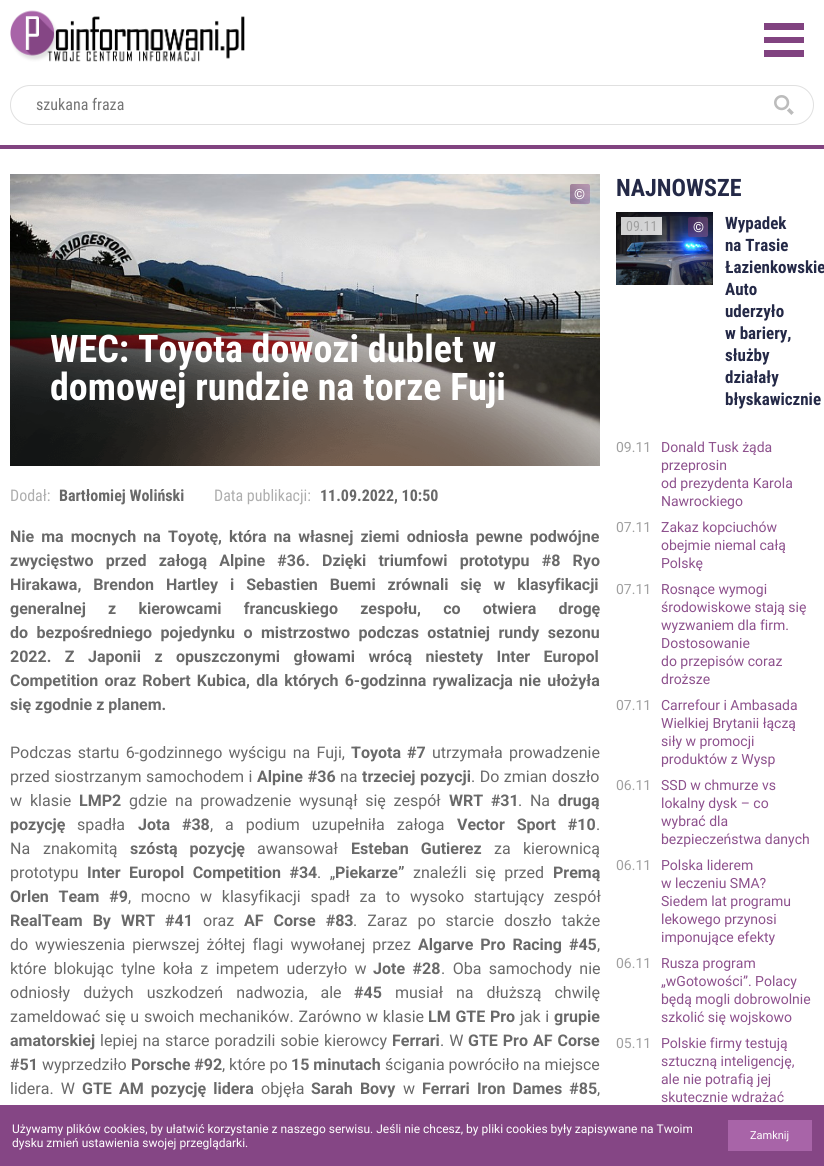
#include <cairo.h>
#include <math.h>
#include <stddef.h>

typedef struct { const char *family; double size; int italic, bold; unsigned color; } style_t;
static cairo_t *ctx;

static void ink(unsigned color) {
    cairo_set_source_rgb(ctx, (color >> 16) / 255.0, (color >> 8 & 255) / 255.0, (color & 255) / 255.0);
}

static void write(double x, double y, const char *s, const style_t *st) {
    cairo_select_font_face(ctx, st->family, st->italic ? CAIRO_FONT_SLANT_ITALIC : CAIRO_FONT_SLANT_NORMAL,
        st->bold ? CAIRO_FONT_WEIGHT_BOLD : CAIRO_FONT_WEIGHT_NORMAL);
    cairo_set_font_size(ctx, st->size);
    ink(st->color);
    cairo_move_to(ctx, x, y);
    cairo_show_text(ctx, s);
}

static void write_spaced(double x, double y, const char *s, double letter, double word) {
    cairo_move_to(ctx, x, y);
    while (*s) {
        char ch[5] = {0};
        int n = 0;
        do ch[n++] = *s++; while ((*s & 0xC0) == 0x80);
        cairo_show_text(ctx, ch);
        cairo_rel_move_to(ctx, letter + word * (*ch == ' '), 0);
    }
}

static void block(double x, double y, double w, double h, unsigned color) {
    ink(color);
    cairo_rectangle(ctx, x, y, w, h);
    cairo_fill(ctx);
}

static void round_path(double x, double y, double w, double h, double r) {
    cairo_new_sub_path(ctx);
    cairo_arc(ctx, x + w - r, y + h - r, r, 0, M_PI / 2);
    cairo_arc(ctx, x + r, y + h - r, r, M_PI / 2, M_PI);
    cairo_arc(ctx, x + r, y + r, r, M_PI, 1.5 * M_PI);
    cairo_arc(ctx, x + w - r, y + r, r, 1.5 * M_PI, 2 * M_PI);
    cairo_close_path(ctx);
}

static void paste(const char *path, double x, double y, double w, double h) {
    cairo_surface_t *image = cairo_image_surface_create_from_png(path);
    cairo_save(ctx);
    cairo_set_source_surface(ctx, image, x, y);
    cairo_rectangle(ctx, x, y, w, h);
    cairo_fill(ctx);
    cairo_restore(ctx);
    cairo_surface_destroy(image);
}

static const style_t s1 = {"Roboto Condensed", 16, 0, 0, 0x757575};
static const style_t s2 = {"Roboto", 14, 0, 0, 0xffffff};
static const style_t s3 = {"Roboto Condensed", 38, 0, 1, 0xffffff};
static const style_t s4 = {"Roboto Condensed", 16, 0, 0, 0xaeaeae};
static const style_t s5 = {"Roboto Condensed", 16, 0, 1, 0x696969};
static const style_t s6 = {"Roboto", 16, 0, 1, 0x696969};
static const style_t s7 = {"Roboto", 16, 0, 0, 0x696969};
static const style_t s8 = {"Roboto Condensed", 24, 0, 1, 0x242947};
static const style_t s9 = {"Roboto Condensed", 14, 0, 0, 0xa0a0a0};
static const style_t s10 = {"Roboto Condensed", 17, 0, 1, 0x242947};
static const style_t s11 = {"Roboto", 14, 0, 0, 0xa0a0a0};
static const style_t s12 = {"Roboto", 14, 0, 0, 0x8d518d};
static const style_t s13 = {"Roboto", 12, 0, 0, 0xffffff};
static const style_t s14 = {"Roboto", 11, 0, 0, 0xffffff};

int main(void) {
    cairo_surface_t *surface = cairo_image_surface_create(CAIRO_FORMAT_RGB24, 824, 1166);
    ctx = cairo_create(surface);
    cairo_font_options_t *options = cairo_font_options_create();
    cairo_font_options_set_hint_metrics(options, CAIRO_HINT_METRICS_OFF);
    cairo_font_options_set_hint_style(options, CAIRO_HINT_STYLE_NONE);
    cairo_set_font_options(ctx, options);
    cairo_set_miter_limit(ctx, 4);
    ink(0xffffff);
    cairo_paint(ctx);
    block(0, 145, 824, 4, 0x814380);
    paste("pic1.png", 10, 10, 235, 52);
    cairo_new_path(ctx);
    cairo_move_to(ctx, 804, 30);
    cairo_line_to(ctx, 764, 30);
    cairo_line_to(ctx, 764, 23);
    cairo_line_to(ctx, 804, 23);
    cairo_close_path(ctx);
    cairo_move_to(ctx, 804, 37);
    cairo_line_to(ctx, 764, 37);
    cairo_line_to(ctx, 764, 43);
    cairo_line_to(ctx, 804, 43);
    cairo_close_path(ctx);
    cairo_move_to(ctx, 804, 50);
    cairo_line_to(ctx, 764, 50);
    cairo_line_to(ctx, 764, 57);
    cairo_line_to(ctx, 804, 57);
    cairo_close_path(ctx);
    cairo_fill(ctx);
    round_path(10.5, 85.5, 803, 39, 19.5);
    ink(0xe0e0e0);
    cairo_set_line_width(ctx, 1);
    cairo_stroke(ctx);
    write(36, 110, "szukana fraza", &s1);
    paste("pic2.png", 774, 95, 20, 20);
    paste("pic3.png", 10, 174, 590, 292);
    paste("pic4.png", 10, 192, 590, 274);
    write(574, 199, "©", &s2);
    write(50, 362, "WEC: Toyota dowozi dublet w", &s3);
    write(50, 400, "domowej rundzie na torze Fuji", &s3);
    write(10, 501, "Dodał:", &s4);
    write(59, 501, "Bartłomiej Woliński", &s5);
    write(214, 501, "Data publikacji:", &s4);
    write(320, 501, "11.09.2022, 10:50", &s5);
    cairo_select_font_face(ctx, "Roboto", CAIRO_FONT_SLANT_NORMAL, CAIRO_FONT_WEIGHT_BOLD);
    write_spaced(10, 542, "Nie ma mocnych na Toyotę, która na własnej ziemi odniosła pewne podwójne", 0, 3.1);
    write_spaced(10, 566, "zwycięstwo przed załogą Alpine #36. Dzięki triumfowi prototypu #8 Ryo", 0, 8.25);
    write_spaced(10, 590, "Hirakawa, Brendon Hartley i Sebastien Buemi zrównali się w klasyfikacji", 0, 8);
    write_spaced(10, 614, "generalnej z kierowcami francuskiego zespołu, co otwiera drogę", 0, 18.25);
    write_spaced(10, 638, "do bezpośredniego pojedynku o mistrzostwo podczas ostatniej rundy sezonu", 0, 4.5);
    write_spaced(10, 662, "2022. Z Japonii z opuszczonymi głowami wrócą niestety Inter Europol", 0, 9.5);
    write_spaced(10, 686, "Competition oraz Robert Kubica, dla których 6-godzinna rywalizacja nie ułożyła", 0, 2.25);
    write(10, 710, "się zgodnie z planem.", &s6);
    cairo_select_font_face(ctx, "Roboto", CAIRO_FONT_SLANT_NORMAL, CAIRO_FONT_WEIGHT_NORMAL);
    write_spaced(10, 758, "Podczas startu 6-godzinnego wyścigu na Fuji,", 0, 2.25);
    write(351, 758, "Toyota", &s6);
    write(407, 758, "#7", &s6);
    cairo_select_font_face(ctx, "Roboto", CAIRO_FONT_SLANT_NORMAL, CAIRO_FONT_WEIGHT_NORMAL);
    write_spaced(432, 758, "utrzymała prowadzenie", 0, 2.25);
    write_spaced(10, 782, "przed siostrzanym samochodem i", 0, 0.5);
    cairo_select_font_face(ctx, "Roboto", CAIRO_FONT_SLANT_NORMAL, CAIRO_FONT_WEIGHT_BOLD);
    write_spaced(257, 782, "Alpine #36", 0, 1);
    write(340, 782, "na", &s7);
    cairo_select_font_face(ctx, "Roboto", CAIRO_FONT_SLANT_NORMAL, CAIRO_FONT_WEIGHT_BOLD);
    write_spaced(362, 782, "trzeciej pozycji", 0, 0.5);
    cairo_select_font_face(ctx, "Roboto", CAIRO_FONT_SLANT_NORMAL, CAIRO_FONT_WEIGHT_NORMAL);
    write_spaced(471, 782, ". Do zmian doszło", 0, 0.5);
    write(10, 806, "w", &s7);
    write(30, 806, "klasie", &s7);
    write(79, 806, "LMP2", &s6);
    cairo_select_font_face(ctx, "Roboto", CAIRO_FONT_SLANT_NORMAL, CAIRO_FONT_WEIGHT_NORMAL);
    write_spaced(129, 806, "gdzie na prowadzenie wysunął się zespół", 0, 3.75);
    cairo_select_font_face(ctx, "Roboto", CAIRO_FONT_SLANT_NORMAL, CAIRO_FONT_WEIGHT_BOLD);
    write_spaced(449, 806, "WRT #31", 0, 3.75);
    cairo_select_font_face(ctx, "Roboto", CAIRO_FONT_SLANT_NORMAL, CAIRO_FONT_WEIGHT_NORMAL);
    write_spaced(518, 806, ". Na", 0, 3.75);
    write(558, 806, "drugą", &s6);
    write(10, 830, "pozycję", &s6);
    write(77, 830, "spadła", &s7);
    cairo_select_font_face(ctx, "Roboto", CAIRO_FONT_SLANT_NORMAL, CAIRO_FONT_WEIGHT_BOLD);
    write_spaced(138, 830, "Jota #38", 0, 8);
    cairo_select_font_face(ctx, "Roboto", CAIRO_FONT_SLANT_NORMAL, CAIRO_FONT_WEIGHT_NORMAL);
    write_spaced(210, 830, ", a podium uzupełniła załoga", 0, 8);
    cairo_select_font_face(ctx, "Roboto", CAIRO_FONT_SLANT_NORMAL, CAIRO_FONT_WEIGHT_BOLD);
    write_spaced(457, 830, "Vector Sport #10", 0, 8);
    write(596, 830, ".", &s7);
    write(10, 854, "Na", &s7);
    write(43, 854, "znakomitą", &s7);
    cairo_select_font_face(ctx, "Roboto", CAIRO_FONT_SLANT_NORMAL, CAIRO_FONT_WEIGHT_BOLD);
    write_spaced(130, 854, "szóstą pozycję", 0, 8);
    write(257, 854, "awansował", &s7);
    cairo_select_font_face(ctx, "Roboto", CAIRO_FONT_SLANT_NORMAL, CAIRO_FONT_WEIGHT_BOLD);
    write_spaced(351, 854, "Esteban Gutierez", 0, 8);
    write(494, 854, "za", &s7);
    write(523, 854, "kierownicą", &s7);
    write(10, 878, "prototypu", &s7);
    cairo_select_font_face(ctx, "Roboto", CAIRO_FONT_SLANT_NORMAL, CAIRO_FONT_WEIGHT_BOLD);
    write_spaced(87, 878, "Inter Europol Competition #34", 0, 4.5);
    cairo_select_font_face(ctx, "Roboto", CAIRO_FONT_SLANT_NORMAL, CAIRO_FONT_WEIGHT_NORMAL);
    write_spaced(317, 878, ". „", 0, 4.5);
    write(335, 878, "Piekarze”", &s6);
    cairo_select_font_face(ctx, "Roboto", CAIRO_FONT_SLANT_NORMAL, CAIRO_FONT_WEIGHT_NORMAL);
    write_spaced(413, 878, "znaleźli się przed", 0, 4.5);
    write(553, 878, "Premą", &s6);
    write_spaced(10, 902, "Orlen Team #9", 0, 5.75);
    cairo_select_font_face(ctx, "Roboto", CAIRO_FONT_SLANT_NORMAL, CAIRO_FONT_WEIGHT_NORMAL);
    write_spaced(128, 902, ", mocno w klasyfikacji spadł za to wysoko startujący zespół", 0, 5.75);
    cairo_select_font_face(ctx, "Roboto", CAIRO_FONT_SLANT_NORMAL, CAIRO_FONT_WEIGHT_BOLD);
    write_spaced(10, 926, "RealTeam By WRT #41", 0, 6);
    write(203, 926, "oraz", &s7);
    cairo_select_font_face(ctx, "Roboto", CAIRO_FONT_SLANT_NORMAL, CAIRO_FONT_WEIGHT_BOLD);
    write_spaced(244, 926, "AF Corse #83", 0, 6);
    cairo_select_font_face(ctx, "Roboto", CAIRO_FONT_SLANT_NORMAL, CAIRO_FONT_WEIGHT_NORMAL);
    write_spaced(353, 926, ". Zaraz po starcie doszło także", 0, 6);
    write_spaced(10, 950, "do wywieszenia pierwszej żółtej flagi wywołanej przez", 0, 3);
    cairo_select_font_face(ctx, "Roboto", CAIRO_FONT_SLANT_NORMAL, CAIRO_FONT_WEIGHT_BOLD);
    write_spaced(418, 950, "Algarve Pro Racing #45", 0, 3);
    write(597, 950, ",", &s7);
    write_spaced(10, 974, "które blokując tylne koła z impetem uderzyło w", 0, 3.5);
    cairo_select_font_face(ctx, "Roboto", CAIRO_FONT_SLANT_NORMAL, CAIRO_FONT_WEIGHT_BOLD);
    write_spaced(373, 974, "Jote #28", 0, 3.5);
    cairo_select_font_face(ctx, "Roboto", CAIRO_FONT_SLANT_NORMAL, CAIRO_FONT_WEIGHT_NORMAL);
    write_spaced(441, 974, ". Oba samochody nie", 0, 3.5);
    write_spaced(10, 998, "odniosły dużych uszkodzeń nadwozia, ale", 0, 9);
    write(354, 998, "#45", &s6);
    cairo_select_font_face(ctx, "Roboto", CAIRO_FONT_SLANT_NORMAL, CAIRO_FONT_WEIGHT_NORMAL);
    write_spaced(395, 998, "musiał na dłuższą chwilę", 0, 9);
    write_spaced(10, 1022, "zameldować się u swoich mechaników. Zarówno w klasie", 0, 0.75);
    cairo_select_font_face(ctx, "Roboto", CAIRO_FONT_SLANT_NORMAL, CAIRO_FONT_WEIGHT_BOLD);
    write_spaced(428, 1022, "LM GTE Pro", 0, 0.75);
    cairo_select_font_face(ctx, "Roboto", CAIRO_FONT_SLANT_NORMAL, CAIRO_FONT_WEIGHT_NORMAL);
    write_spaced(520, 1022, "jak i", 0, 0.75);
    write(554, 1022, "grupie", &s6);
    write(10, 1046, "amatorskiej", &s6);
    cairo_select_font_face(ctx, "Roboto", CAIRO_FONT_SLANT_NORMAL, CAIRO_FONT_WEIGHT_NORMAL);
    write_spaced(100, 1046, "lepiej na starce poradzili sobie kierowcy", 0, 1);
    write(392, 1046, "Ferrari", &s6);
    cairo_select_font_face(ctx, "Roboto", CAIRO_FONT_SLANT_NORMAL, CAIRO_FONT_WEIGHT_NORMAL);
    write_spaced(440, 1046, ". W", 0, 1);
    cairo_select_font_face(ctx, "Roboto", CAIRO_FONT_SLANT_NORMAL, CAIRO_FONT_WEIGHT_BOLD);
    write_spaced(468, 1046, "GTE Pro AF Corse", 0, 1);
    write(10, 1070, "#51", &s6);
    write(42, 1070, "wyprzedziło", &s7);
    write(131, 1070, "Porsche #92", &s6);
    write(222, 1070, ", które po", &s7);
    write(291, 1070, "15 minutach", &s6);
    write(385, 1070, "ścigania powróciło na miejsce", &s7);
    write_spaced(10, 1094, "lidera. W", 0, 3.1);
    cairo_select_font_face(ctx, "Roboto", CAIRO_FONT_SLANT_NORMAL, CAIRO_FONT_WEIGHT_BOLD);
    write_spaced(82, 1094, "GTE AM pozycję lidera", 0, 3.1);
    write(261, 1094, "objęła", &s7);
    cairo_select_font_face(ctx, "Roboto", CAIRO_FONT_SLANT_NORMAL, CAIRO_FONT_WEIGHT_BOLD);
    write_spaced(311, 1094, "Sarah Bovy", 0, 3.1);
    write(403, 1094, "w", &s7);
    cairo_select_font_face(ctx, "Roboto", CAIRO_FONT_SLANT_NORMAL, CAIRO_FONT_WEIGHT_BOLD);
    write_spaced(422, 1094, "Ferrari Iron Dames #85", 0, 3.1);
    write(597, 1094, ",", &s7);
    write(616, 196, "NAJNOWSZE", &s8);
    paste("pic5.png", 616, 212, 97, 73);
    cairo_set_source_rgba(ctx, 1, 1, 1, 0.8);
    cairo_rectangle(ctx, 621, 217, 41, 18);
    cairo_fill(ctx);
    write(626, 231, "09.11", &s9);
    write(725, 229, "Wypadek", &s10);
    write(725, 251, "na Trasie", &s10);
    write(725, 273, "Łazienkowskie", &s10);
    write(725, 295, "Auto", &s10);
    write(725, 317, "uderzyło", &s10);
    write(725, 339, "w bariery,", &s10);
    write(725, 361, "służby", &s10);
    write(725, 383, "działały", &s10);
    write(725, 405, "błyskawicznie", &s10);
    write(693, 232, "©", &s2);
    write(616, 452, "09.11", &s11);
    write(661, 452, "Donald Tusk żąda", &s12);
    write(661, 470, "przeprosin", &s12);
    write(661, 488, "od prezydenta Karola", &s12);
    write(661, 506, "Nawrockiego", &s12);
    write(616, 532, "07.11", &s11);
    write(661, 532, "Zakaz kopciuchów", &s12);
    write(661, 550, "obejmie niemal całą", &s12);
    write(661, 568, "Polskę", &s12);
    write(616, 594, "07.11", &s11);
    write(661, 594, "Rosnące wymogi", &s12);
    write(661, 612, "środowiskowe stają się", &s12);
    write(661, 630, "wyzwaniem dla firm.", &s12);
    write(661, 648, "Dostosowanie", &s12);
    write(661, 666, "do przepisów coraz", &s12);
    write(661, 684, "droższe", &s12);
    write(616, 710, "07.11", &s11);
    write(661, 710, "Carrefour i Ambasada", &s12);
    write(661, 728, "Wielkiej Brytanii łączą", &s12);
    write(661, 746, "siły w promocji", &s12);
    write(661, 764, "produktów z Wysp", &s12);
    write(616, 790, "06.11", &s11);
    write(661, 790, "SSD w chmurze vs", &s12);
    write(661, 808, "lokalny dysk – co", &s12);
    write(661, 826, "wybrać dla", &s12);
    write(661, 844, "bezpieczeństwa danych", &s12);
    write(616, 870, "06.11", &s11);
    write(661, 870, "Polska liderem", &s12);
    write(661, 888, "w leczeniu SMA?", &s12);
    write(661, 906, "Siedem lat programu", &s12);
    write(661, 924, "lekowego przynosi", &s12);
    write(661, 942, "imponujące efekty", &s12);
    write(616, 968, "06.11", &s11);
    write(661, 968, "Rusza program", &s12);
    write(661, 986, "„wGotowości”. Polacy", &s12);
    write(661, 1004, "będą mogli dobrowolnie", &s12);
    write(661, 1022, "szkolić się wojskowo", &s12);
    write(616, 1048, "05.11", &s11);
    write(661, 1048, "Polskie firmy testują", &s12);
    write(661, 1066, "sztuczną inteligencję,", &s12);
    write(661, 1084, "ale nie potrafią jej", &s12);
    write(661, 1102, "skutecznie wdrażać", &s12);
    block(0, 1105, 824, 61, 0x854685);
    write(12, 1133, "Używamy plików cookies, by ułatwić korzystanie z naszego serwisu. Jeśli nie chcesz, by pliki cookies były zapisywane na Twoim", &s13);
    write(12, 1147, "dysku zmień ustawienia swojej przeglądarki.", &s13);
    block(728, 1120, 84, 31, 0xa864a8);
    write(750, 1139, "Zamknij", &s14);
    cairo_surface_write_to_png(surface, "screenshot.png");
    cairo_font_options_destroy(options);
    cairo_destroy(ctx);
    cairo_surface_destroy(surface);
    return 0;
}
